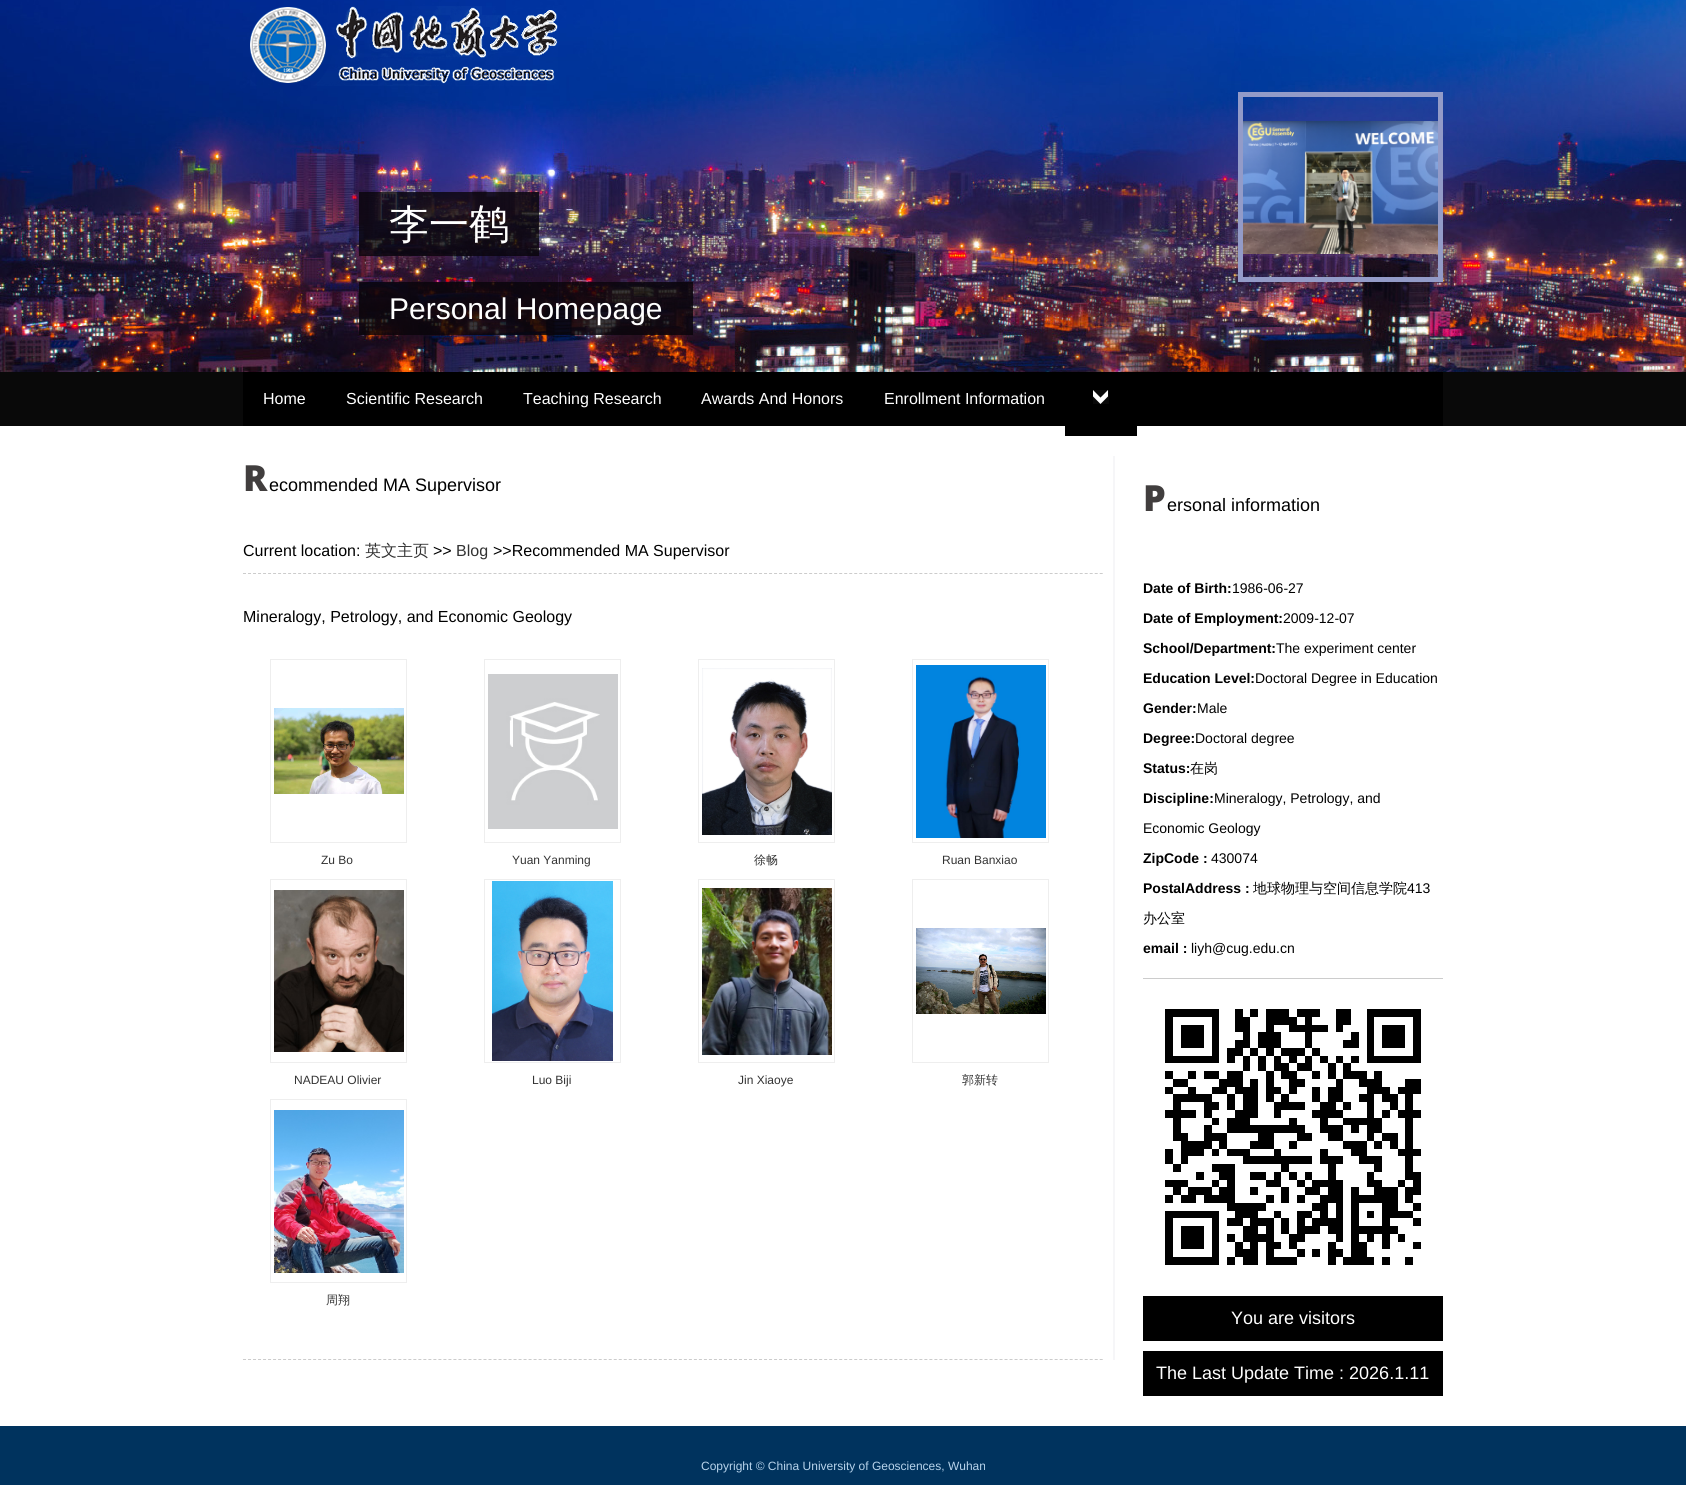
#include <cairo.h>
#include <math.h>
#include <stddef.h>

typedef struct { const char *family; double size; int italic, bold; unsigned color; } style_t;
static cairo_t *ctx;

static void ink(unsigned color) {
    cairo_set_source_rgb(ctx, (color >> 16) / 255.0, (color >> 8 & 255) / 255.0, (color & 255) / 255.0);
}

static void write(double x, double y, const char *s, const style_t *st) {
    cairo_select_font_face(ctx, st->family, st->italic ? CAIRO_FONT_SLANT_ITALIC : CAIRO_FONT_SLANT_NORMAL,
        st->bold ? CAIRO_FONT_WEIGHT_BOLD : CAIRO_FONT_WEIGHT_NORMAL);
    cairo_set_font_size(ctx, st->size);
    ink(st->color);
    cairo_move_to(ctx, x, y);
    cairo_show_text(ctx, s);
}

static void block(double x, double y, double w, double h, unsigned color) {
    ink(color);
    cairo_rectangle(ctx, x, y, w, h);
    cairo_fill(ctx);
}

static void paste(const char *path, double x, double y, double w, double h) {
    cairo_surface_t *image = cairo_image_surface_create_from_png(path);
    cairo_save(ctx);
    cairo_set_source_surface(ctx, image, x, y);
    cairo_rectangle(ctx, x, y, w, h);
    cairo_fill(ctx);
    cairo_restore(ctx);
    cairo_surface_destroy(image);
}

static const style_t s1 = {"WenQuanYi Zen Hei Medium", 40, 0, 0, 0xffffff};
static const style_t s2 = {"Liberation Sans", 30, 0, 0, 0xffffff};
static const style_t s3 = {"Liberation Sans", 16, 0, 0, 0xffffff};
static const style_t s4 = {"Noto Sans Black", 36, 0, 0, 0x413e3e};
static const style_t s5 = {"Liberation Sans", 18, 0, 0, 0x000000};
static const style_t s6 = {"Liberation Sans", 16, 0, 0, 0x000000};
static const style_t s7 = {"WenQuanYi Zen Hei Medium", 16, 0, 0, 0x333333};
static const style_t s8 = {"Liberation Sans", 16, 0, 0, 0x333333};
static const style_t s9 = {"Liberation Sans", 12, 0, 0, 0x333333};
static const style_t s10 = {"WenQuanYi Zen Hei Medium", 12, 0, 0, 0x333333};
static const style_t s11 = {"Liberation Sans", 14, 0, 1, 0x000000};
static const style_t s12 = {"Liberation Sans", 14, 0, 0, 0x000000};
static const style_t s13 = {"WenQuanYi Zen Hei Medium", 14, 0, 0, 0x000000};
static const style_t s14 = {"Liberation Sans", 18, 0, 0, 0xffffff};
static const style_t s15 = {"Liberation Sans", 12, 0, 0, 0xb7d3eb};

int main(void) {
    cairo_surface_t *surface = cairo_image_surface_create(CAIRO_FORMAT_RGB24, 1686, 1485);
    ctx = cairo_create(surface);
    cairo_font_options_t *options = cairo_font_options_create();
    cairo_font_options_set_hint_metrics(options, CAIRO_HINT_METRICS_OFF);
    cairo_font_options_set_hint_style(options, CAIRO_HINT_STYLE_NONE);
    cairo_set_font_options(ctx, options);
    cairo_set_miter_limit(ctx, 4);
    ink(0xffffff);
    cairo_paint(ctx);
    paste("pic1.png", 0, 0, 1686, 372);
    paste("pic2.png", 250, 6, 308, 80);
    cairo_set_source_rgba(ctx, 0.031, 0.016, 0.039, 0.8);
    cairo_rectangle(ctx, 359, 192, 180, 64);
    cairo_fill(ctx);
    write(389, 238, "李一鹤", &s1);
    cairo_set_source_rgba(ctx, 0.031, 0.016, 0.039, 0.8);
    cairo_rectangle(ctx, 359, 282, 334, 53);
    cairo_fill(ctx);
    write(389, 319, "Personal Homepage", &s2);
    cairo_rectangle(ctx, 1240.5, 94.5, 200, 185);
    ink(0x939bc8);
    cairo_set_line_width(ctx, 5);
    cairo_stroke(ctx);
    paste("pic3.png", 1243, 121, 195, 133);
    block(0, 372, 1686, 54, 0x090909);
    block(243, 372, 1200, 54, 0x000000);
    write(263, 404, "Home", &s3);
    write(346, 404, "Scientific Research", &s3);
    write(523, 404, "Teaching Research", &s3);
    write(701, 404, "Awards And Honors", &s3);
    write(884, 404, "Enrollment Information", &s3);
    block(1065, 426, 72, 10, 0x000000);
    paste("pic4.png", 1093, 390, 16, 14);
    block(1113, 456, 2, 904, 0xf6f6f8);
    write(243, 491, "R", &s4);
    write(269, 491, "ecommended MA Supervisor", &s5);
    cairo_new_path(ctx);
    cairo_move_to(ctx, 243, 573.5);
    cairo_line_to(ctx, 1103, 573.5);
    ink(0xcccccc);
    cairo_set_line_width(ctx, 1);
    cairo_set_dash(ctx, (double[]){3, 2.01}, 2, 0);
    cairo_stroke(ctx);
    write(243, 556, "Current location:", &s6);
    write(365, 556, "英文主页", &s7);
    write(433, 556, ">>", &s6);
    write(456, 556, "Blog", &s8);
    write(493, 556, ">>Recommended MA Supervisor", &s6);
    cairo_new_path(ctx);
    cairo_move_to(ctx, 243, 1359.5);
    cairo_line_to(ctx, 1103, 1359.5);
    ink(0xcccccc);
    cairo_stroke(ctx);
    write(243, 622, "Mineralogy, Petrology, and Economic Geology", &s6);
    cairo_rectangle(ctx, 270.5, 659.5, 136, 183);
    ink(0xeeeeee);
    cairo_set_dash(ctx, NULL, 0, 0);
    cairo_stroke(ctx);
    paste("pic5.png", 274, 708, 130, 86);
    write(321, 864, "Zu Bo", &s9);
    cairo_rectangle(ctx, 484.5, 659.5, 136, 183);
    ink(0xeeeeee);
    cairo_stroke(ctx);
    paste("pic6.png", 488, 674, 130, 155);
    write(512, 864, "Yuan Yanming", &s9);
    cairo_rectangle(ctx, 698.5, 659.5, 136, 183);
    ink(0xeeeeee);
    cairo_stroke(ctx);
    paste("pic7.png", 702, 668, 130, 167);
    write(754, 864, "徐畅", &s10);
    cairo_rectangle(ctx, 912.5, 659.5, 136, 183);
    ink(0xeeeeee);
    cairo_stroke(ctx);
    paste("pic8.png", 916, 665, 130, 173);
    write(942, 864, "Ruan Banxiao", &s9);
    cairo_rectangle(ctx, 270.5, 879.5, 136, 183);
    ink(0xeeeeee);
    cairo_stroke(ctx);
    paste("pic9.png", 274, 890, 130, 162);
    write(294, 1084, "NADEAU Olivier", &s9);
    cairo_rectangle(ctx, 484.5, 879.5, 136, 183);
    ink(0xeeeeee);
    cairo_stroke(ctx);
    paste("pic10.png", 492, 881, 121, 180);
    write(532, 1084, "Luo Biji", &s9);
    cairo_rectangle(ctx, 698.5, 879.5, 136, 183);
    ink(0xeeeeee);
    cairo_stroke(ctx);
    paste("pic11.png", 702, 888, 130, 167);
    write(738, 1084, "Jin Xiaoye", &s9);
    cairo_rectangle(ctx, 912.5, 879.5, 136, 183);
    ink(0xeeeeee);
    cairo_stroke(ctx);
    paste("pic12.png", 916, 928, 130, 86);
    write(962, 1084, "郭新转", &s10);
    cairo_rectangle(ctx, 270.5, 1099.5, 136, 183);
    ink(0xeeeeee);
    cairo_stroke(ctx);
    paste("pic13.png", 274, 1110, 130, 163);
    write(326, 1304, "周翔", &s10);
    write(1143, 511, "P", &s4);
    write(1167, 511, "ersonal information", &s5);
    block(1143, 978, 300, 1, 0xcccccc);
    write(1143, 593, "Date of Birth:", &s11);
    write(1232, 593, "1986-06-27", &s12);
    write(1143, 623, "Date of Employment:", &s11);
    write(1283, 623, "2009-12-07", &s12);
    write(1143, 653, "School/Department:", &s11);
    write(1276, 653, "The experiment center", &s12);
    write(1143, 683, "Education Level:", &s11);
    write(1255, 683, "Doctoral Degree in Education", &s12);
    write(1143, 713, "Gender:", &s11);
    write(1197, 713, "Male", &s12);
    write(1143, 743, "Degree:", &s11);
    write(1195, 743, "Doctoral degree", &s12);
    write(1143, 773, "Status:", &s11);
    write(1190, 773, "在岗", &s13);
    write(1143, 803, "Discipline:", &s11);
    write(1214, 803, "Mineralogy, Petrology, and", &s12);
    write(1143, 833, "Economic Geology", &s12);
    write(1143, 863, "ZipCode :", &s11);
    write(1211, 863, "430074", &s12);
    write(1143, 893, "PostalAddress :", &s11);
    write(1253, 893, "地球物理与空间信息学院", &s13);
    write(1407, 893, "413", &s12);
    write(1143, 923, "办公室", &s13);
    write(1143, 953, "email :", &s11);
    write(1191, 953, "liyh@cug.edu.cn", &s12);
    paste("pic14.png", 1165, 1009, 256, 256);
    block(1143, 1296, 300, 45, 0x000000);
    write(1231, 1324, "You are visitors", &s14);
    block(1143, 1351, 300, 45, 0x000000);
    write(1156, 1379, "The Last Update Time : 2026.1.11", &s14);
    block(0, 1426, 1686, 59, 0x00335e);
    write(701, 1470, "Copyright © China University of Geosciences, Wuhan", &s15);
    cairo_surface_write_to_png(surface, "screenshot.png");
    cairo_font_options_destroy(options);
    cairo_destroy(ctx);
    cairo_surface_destroy(surface);
    return 0;
}
